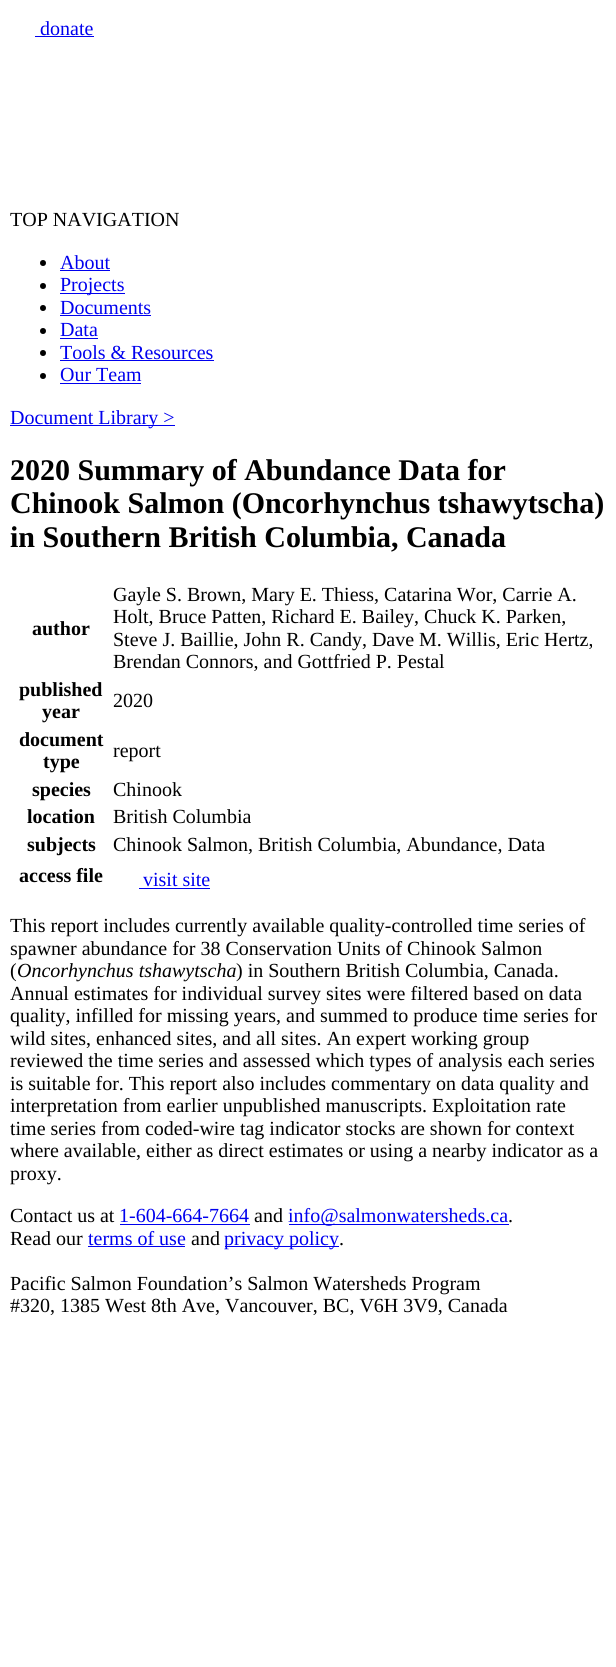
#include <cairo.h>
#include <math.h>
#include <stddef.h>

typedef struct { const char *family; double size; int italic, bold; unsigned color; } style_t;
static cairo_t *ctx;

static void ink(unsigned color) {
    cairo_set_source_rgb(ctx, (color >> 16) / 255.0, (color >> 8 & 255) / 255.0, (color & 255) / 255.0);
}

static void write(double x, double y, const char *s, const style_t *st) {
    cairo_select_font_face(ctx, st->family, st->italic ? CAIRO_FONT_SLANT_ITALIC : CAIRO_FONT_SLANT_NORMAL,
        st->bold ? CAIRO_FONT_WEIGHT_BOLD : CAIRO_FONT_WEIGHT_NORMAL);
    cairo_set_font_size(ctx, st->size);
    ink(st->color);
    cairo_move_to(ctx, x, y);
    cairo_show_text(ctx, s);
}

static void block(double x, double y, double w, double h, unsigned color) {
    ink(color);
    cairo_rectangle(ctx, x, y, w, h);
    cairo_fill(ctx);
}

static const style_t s1 = {"Liberation Serif", 20, 0, 0, 0x0000ee};
static const style_t s2 = {"Liberation Serif", 20, 0, 0, 0x000000};
static const style_t s3 = {"Liberation Serif", 30, 0, 1, 0x000000};
static const style_t s4 = {"Liberation Serif", 20, 0, 1, 0x000000};
static const style_t s5 = {"Liberation Serif", 20, 1, 0, 0x000000};

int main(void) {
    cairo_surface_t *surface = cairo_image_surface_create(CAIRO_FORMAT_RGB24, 616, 1667);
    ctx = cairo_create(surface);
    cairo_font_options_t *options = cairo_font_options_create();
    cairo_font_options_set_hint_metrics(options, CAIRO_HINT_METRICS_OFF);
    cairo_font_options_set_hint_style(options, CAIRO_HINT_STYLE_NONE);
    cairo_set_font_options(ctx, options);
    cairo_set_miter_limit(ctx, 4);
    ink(0xffffff);
    cairo_paint(ctx);
    write(40, 35, "donate", &s1);
    block(35, 36, 59, 1, 0x0000ee);
    write(10, 226, "TOP NAVIGATION", &s2);
    cairo_new_path(ctx);
    cairo_arc(ctx, 43, 263, 3, 0, 2 * M_PI);
    cairo_fill(ctx);
    write(60, 269, "About", &s1);
    block(60, 270, 50, 1, 0x0000ee);
    ink(0x000000);
    cairo_new_path(ctx);
    cairo_arc(ctx, 43, 286, 3, 0, 2 * M_PI);
    cairo_fill(ctx);
    block(60, 293, 65, 1, 0x0000ee);
    write(60, 291, "Projects", &s1);
    ink(0x000000);
    cairo_new_path(ctx);
    cairo_arc(ctx, 43, 308, 3, 0, 2 * M_PI);
    cairo_fill(ctx);
    write(60, 314, "Documents", &s1);
    block(60, 315, 91, 1, 0x0000ee);
    ink(0x000000);
    cairo_new_path(ctx);
    cairo_arc(ctx, 43, 331, 3, 0, 2 * M_PI);
    cairo_fill(ctx);
    write(60, 336, "Data", &s1);
    block(60, 338, 38, 1, 0x0000ee);
    ink(0x000000);
    cairo_new_path(ctx);
    cairo_arc(ctx, 43, 353, 3, 0, 2 * M_PI);
    cairo_fill(ctx);
    write(60, 359, "Tools & Resources", &s1);
    block(60, 360, 154, 1, 0x0000ee);
    ink(0x000000);
    cairo_new_path(ctx);
    cairo_arc(ctx, 43, 376, 3, 0, 2 * M_PI);
    cairo_fill(ctx);
    write(60, 381, "Our Team", &s1);
    block(60, 383, 81, 1, 0x0000ee);
    block(10, 425, 165, 1, 0x0000ee);
    write(10, 424, "Document Library >", &s1);
    write(10, 480, "2020 Summary of Abundance Data for", &s3);
    write(10, 513, "Chinook Salmon (Oncorhynchus tshawytscha)", &s3);
    write(10, 547, "in Southern British Columbia, Canada", &s3);
    write(32, 635, "author", &s4);
    write(113, 601, "Gayle S. Brown, Mary E. Thiess, Catarina Wor, Carrie A.", &s2);
    write(113, 623, "Holt, Bruce Patten, Richard E. Bailey, Chuck K. Parken,", &s2);
    write(113, 646, "Steve J. Baillie, John R. Candy, Dave M. Willis, Eric Hertz,", &s2);
    write(113, 668, "Brendan Connors, and Gottfried P. Pestal", &s2);
    write(19, 696, "published", &s4);
    write(42, 718, "year", &s4);
    write(113, 707, "2020", &s2);
    write(19, 746, "document", &s4);
    write(43, 768, "type", &s4);
    write(113, 757, "report", &s2);
    write(32, 796, "species", &s4);
    write(113, 796, "Chinook", &s2);
    write(27, 823, "location", &s4);
    write(113, 823, "British Columbia", &s2);
    write(27, 851, "subjects", &s4);
    write(113, 851, "Chinook Salmon, British Columbia, Abundance, Data", &s2);
    write(19, 882, "access file", &s4);
    write(143, 886, "visit site", &s1);
    block(139, 888, 71, 1, 0x0000ee);
    write(10, 932, "This report includes currently available quality-controlled time series of", &s2);
    write(10, 955, "spawner abundance for 38 Conservation Units of Chinook Salmon", &s2);
    write(10, 977, "(", &s2);
    write(17, 977, "Oncorhynchus tshawytscha", &s5);
    write(236, 977, ") in Southern British Columbia, Canada.", &s2);
    write(10, 1000, "Annual estimates for individual survey sites were filtered based on data", &s2);
    write(10, 1022, "quality, infilled for missing years, and summed to produce time series for", &s2);
    write(10, 1045, "wild sites, enhanced sites, and all sites. An expert working group", &s2);
    write(10, 1067, "reviewed the time series and assessed which types of analysis each series", &s2);
    write(10, 1090, "is suitable for. This report also includes commentary on data quality and", &s2);
    write(10, 1112, "interpretation from earlier unpublished manuscripts. Exploitation rate", &s2);
    write(10, 1135, "time series from coded-wire tag indicator stocks are shown for context", &s2);
    write(10, 1157, "where available, either as direct estimates or using a nearby indicator as a", &s2);
    write(10, 1180, "proxy.", &s2);
    write(10, 1222, "Contact us at", &s2);
    write(119, 1222, "1-604-664-7664", &s1);
    block(120, 1224, 130, 1, 0x0000ee);
    write(254, 1222, "and", &s2);
    block(289, 1224, 220, 1, 0x0000ee);
    write(288, 1222, "info@salmonwatersheds.ca", &s1);
    write(508, 1222, ".", &s2);
    write(10, 1245, "Read our", &s2);
    write(88, 1245, "terms of use", &s1);
    block(88, 1246, 97, 1, 0x0000ee);
    write(191, 1245, "and", &s2);
    block(225, 1246, 114, 1, 0x0000ee);
    write(224, 1245, "privacy policy", &s1);
    write(339, 1245, ".", &s2);
    write(10, 1290, "Pacific Salmon Foundation’s Salmon Watersheds Program", &s2);
    write(10, 1312, "#320, 1385 West 8th Ave, Vancouver, BC, V6H 3V9, Canada", &s2);
    cairo_surface_write_to_png(surface, "screenshot.png");
    cairo_font_options_destroy(options);
    cairo_destroy(ctx);
    cairo_surface_destroy(surface);
    return 0;
}
